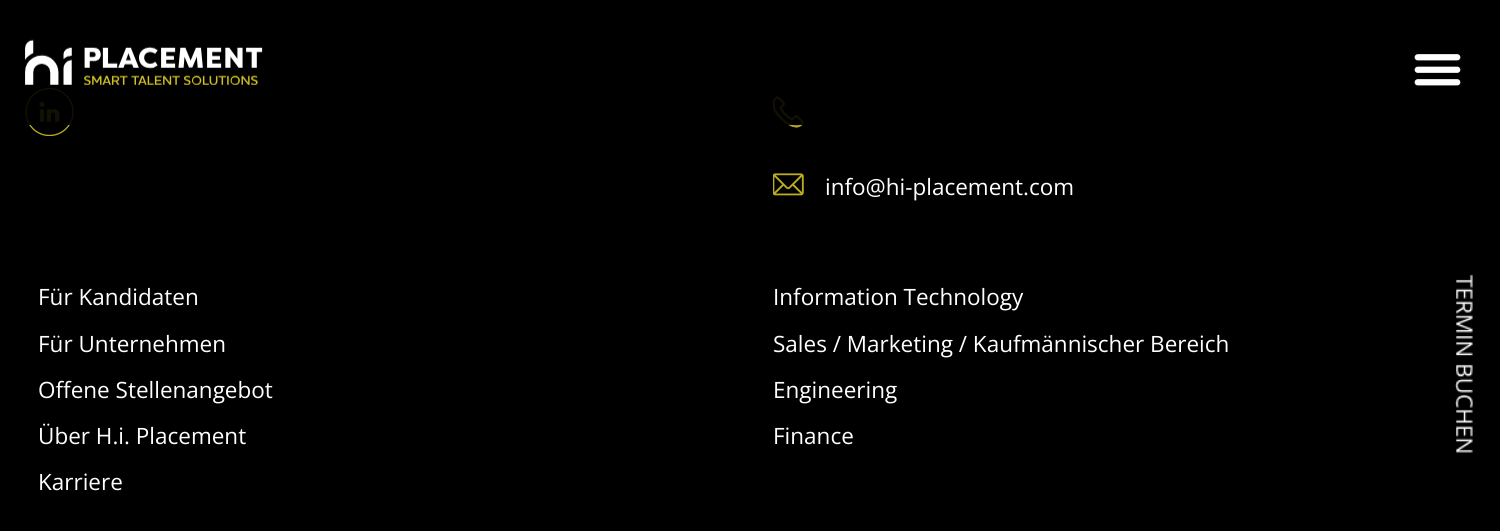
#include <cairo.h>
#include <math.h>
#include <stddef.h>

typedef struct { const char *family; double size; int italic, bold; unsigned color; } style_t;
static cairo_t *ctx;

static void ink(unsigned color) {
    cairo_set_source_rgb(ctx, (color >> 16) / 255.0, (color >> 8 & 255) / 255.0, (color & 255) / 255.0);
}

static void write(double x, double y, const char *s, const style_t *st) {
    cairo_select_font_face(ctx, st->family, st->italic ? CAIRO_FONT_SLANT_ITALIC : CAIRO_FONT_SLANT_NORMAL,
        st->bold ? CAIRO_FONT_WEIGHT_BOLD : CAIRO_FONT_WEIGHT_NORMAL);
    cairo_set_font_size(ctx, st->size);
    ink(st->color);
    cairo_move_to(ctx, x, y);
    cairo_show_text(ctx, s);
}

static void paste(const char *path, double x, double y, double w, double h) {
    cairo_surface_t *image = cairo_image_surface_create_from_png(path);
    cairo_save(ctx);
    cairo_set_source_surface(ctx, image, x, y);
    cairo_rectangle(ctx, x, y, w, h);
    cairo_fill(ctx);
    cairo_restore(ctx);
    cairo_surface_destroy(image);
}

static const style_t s1 = {"Open Sans", 22.5, 0, 0, 0xffffff};

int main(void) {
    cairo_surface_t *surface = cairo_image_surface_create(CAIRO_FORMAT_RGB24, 1500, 531);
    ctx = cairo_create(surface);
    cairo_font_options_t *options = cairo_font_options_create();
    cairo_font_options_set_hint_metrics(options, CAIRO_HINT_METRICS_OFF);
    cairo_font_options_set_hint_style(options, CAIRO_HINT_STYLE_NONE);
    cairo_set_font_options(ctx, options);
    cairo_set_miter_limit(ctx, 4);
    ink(0x000000);
    cairo_paint(ctx);
    paste("pic4.png", 25, 88, 49, 48);
    paste("pic5.png", 773, 96, 31, 32);
    cairo_set_source_rgba(ctx, 0, 0, 0, 0.9);
    cairo_rectangle(ctx, 25, 88, 779, 37);
    cairo_fill(ctx);
    paste("pic1.png", 25, 39, 238, 46);
    paste("pic2.png", 1414, 54, 47, 32);
    paste("pic3.png", 1455, 274, 18, 179);
    paste("pic6.png", 773, 173, 31, 23);
    write(825, 195, "info@hi-placement.com", &s1);
    write(38, 305, "Für Kandidaten", &s1);
    write(38, 352, "Für Unternehmen", &s1);
    write(38, 398, "Offene Stellenangebot", &s1);
    write(38, 444, "Über H.i. Placement", &s1);
    write(38, 490, "Karriere", &s1);
    write(773, 305, "Information Technology", &s1);
    write(773, 352, "Sales / Marketing / Kaufmännischer Bereich", &s1);
    write(773, 398, "Engineering", &s1);
    write(773, 444, "Finance", &s1);
    cairo_surface_write_to_png(surface, "screenshot.png");
    cairo_font_options_destroy(options);
    cairo_destroy(ctx);
    cairo_surface_destroy(surface);
    return 0;
}
